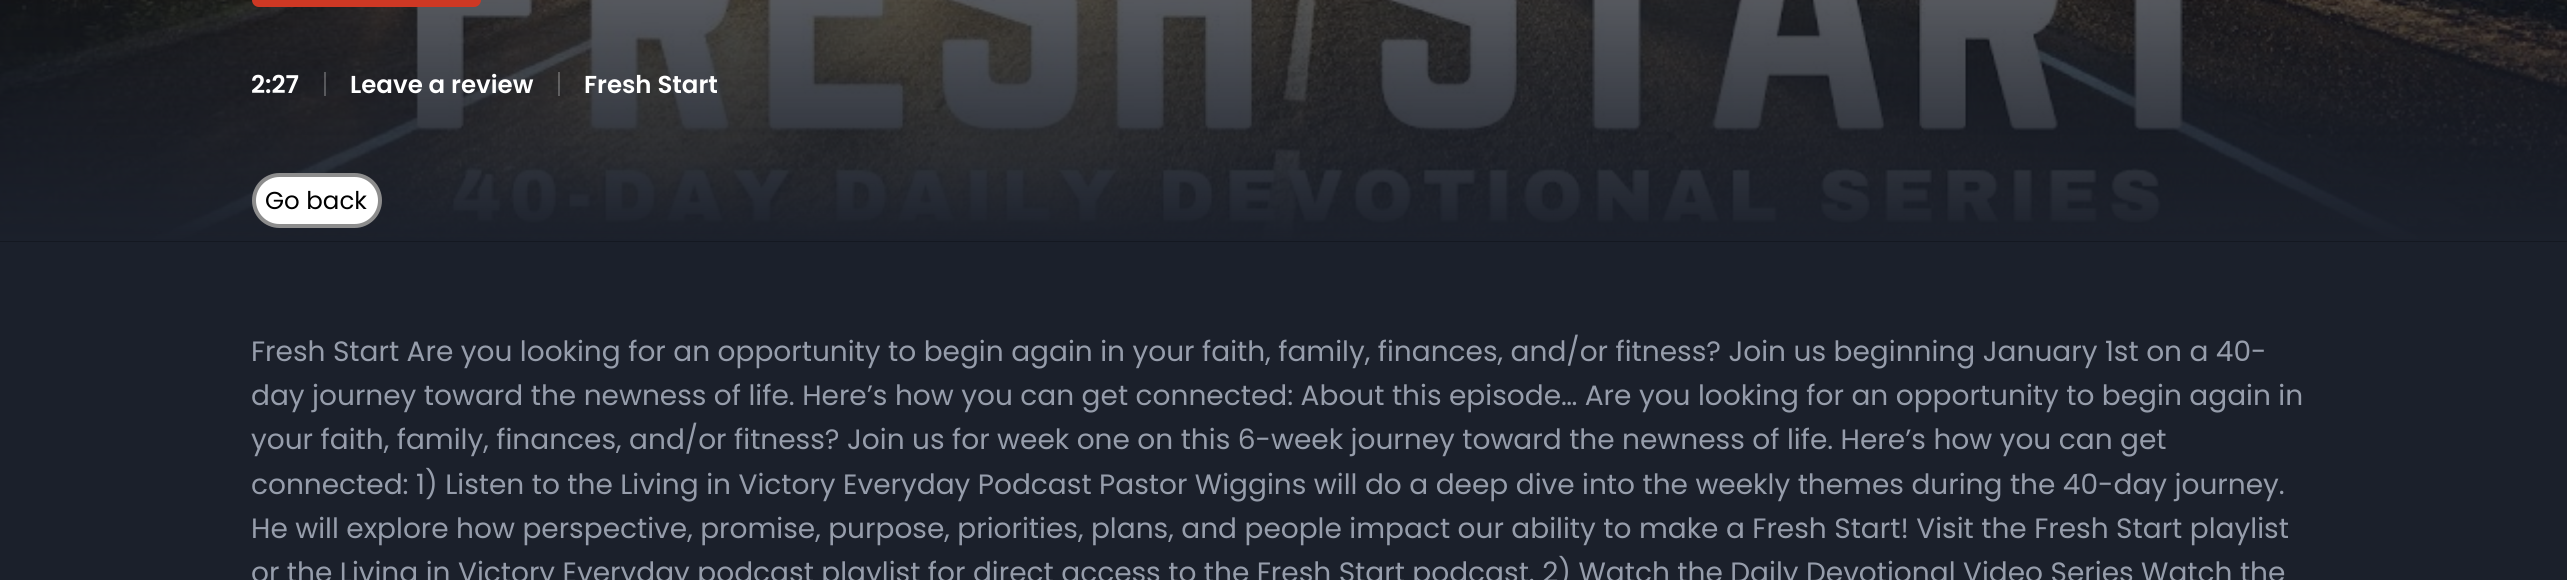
#include <cairo.h>
#include <math.h>
#include <stddef.h>

typedef struct { const char *family; double size; int italic, bold; unsigned color; } style_t;
static cairo_t *ctx;

static void ink(unsigned color) {
    cairo_set_source_rgb(ctx, (color >> 16) / 255.0, (color >> 8 & 255) / 255.0, (color & 255) / 255.0);
}

static void write(double x, double y, const char *s, const style_t *st) {
    cairo_select_font_face(ctx, st->family, st->italic ? CAIRO_FONT_SLANT_ITALIC : CAIRO_FONT_SLANT_NORMAL,
        st->bold ? CAIRO_FONT_WEIGHT_BOLD : CAIRO_FONT_WEIGHT_NORMAL);
    cairo_set_font_size(ctx, st->size);
    ink(st->color);
    cairo_move_to(ctx, x, y);
    cairo_show_text(ctx, s);
}

static void block(double x, double y, double w, double h, unsigned color) {
    ink(color);
    cairo_rectangle(ctx, x, y, w, h);
    cairo_fill(ctx);
}

static void round_path(double x, double y, double w, double h, double r) {
    cairo_new_sub_path(ctx);
    cairo_arc(ctx, x + w - r, y + h - r, r, 0, M_PI / 2);
    cairo_arc(ctx, x + r, y + h - r, r, M_PI / 2, M_PI);
    cairo_arc(ctx, x + r, y + r, r, M_PI, 1.5 * M_PI);
    cairo_arc(ctx, x + w - r, y + r, r, 1.5 * M_PI, 2 * M_PI);
    cairo_close_path(ctx);
}

static void paste(const char *path, double x, double y, double w, double h) {
    cairo_surface_t *image = cairo_image_surface_create_from_png(path);
    cairo_save(ctx);
    cairo_set_source_surface(ctx, image, x, y);
    cairo_rectangle(ctx, x, y, w, h);
    cairo_fill(ctx);
    cairo_restore(ctx);
    cairo_surface_destroy(image);
}

static const style_t s1 = {"Poppins SemiBold", 24.5, 0, 0, 0xffffff};
static const style_t s2 = {"Poppins", 24.5, 0, 0, 0x000000};
static const style_t s3 = {"Poppins", 28, 0, 0, 0x969dab};

int main(void) {
    cairo_surface_t *surface = cairo_image_surface_create(CAIRO_FORMAT_RGB24, 2567, 580);
    ctx = cairo_create(surface);
    cairo_font_options_t *options = cairo_font_options_create();
    cairo_font_options_set_hint_metrics(options, CAIRO_HINT_METRICS_OFF);
    cairo_font_options_set_hint_style(options, CAIRO_HINT_STYLE_NONE);
    cairo_set_font_options(ctx, options);
    cairo_set_miter_limit(ctx, 4);
    ink(0x1b202b);
    cairo_paint(ctx);
    block(0, 241, 2567, 1, 0x141821);
    paste("pic1.png", 0, 0, 2567, 241);
    ink(0xce3824);
    round_path(254, -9, 225, 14, 5);
    cairo_fill_preserve(ctx);
    cairo_set_line_width(ctx, 4);
    cairo_stroke(ctx);
    write(251, 93, "2:27", &s1);
    cairo_set_source_rgba(ctx, 1, 1, 1, 0.25);
    cairo_rectangle(ctx, 324, 72, 2, 24);
    cairo_fill(ctx);
    write(350, 93, "Leave a review", &s1);
    cairo_set_source_rgba(ctx, 1, 1, 1, 0.25);
    cairo_rectangle(ctx, 558, 72, 2, 24);
    cairo_fill(ctx);
    write(584, 93, "Fresh Start", &s1);
    round_path(254, 175, 126, 51, 25.5);
    cairo_fill_preserve(ctx);
    ink(0x8d8d8d);
    cairo_stroke(ctx);
    write(265, 209, "Go back", &s2);
    write(251, 361, "Fresh Start Are you looking for an opportunity to begin again in your faith, family, finances, and/or fitness? Join us beginning January 1st on a 40-", &s3);
    write(251, 405, "day journey toward the newness of life. Here’s how you can get connected: About this episode… Are you looking for an opportunity to begin again in", &s3);
    write(251, 449, "your faith, family, finances, and/or fitness? Join us for week one on this 6-week journey toward the newness of life. Here’s how you can get", &s3);
    write(251, 494, "connected: 1) Listen to the Living in Victory Everyday Podcast Pastor Wiggins will do a deep dive into the weekly themes during the 40-day journey.", &s3);
    write(251, 538, "He will explore how perspective, promise, purpose, priorities, plans, and people impact our ability to make a Fresh Start! Visit the Fresh Start playlist", &s3);
    write(251, 582, "or the Living in Victory Everyday podcast playlist for direct access to the Fresh Start podcast. 2) Watch the Daily Devotional Video Series Watch the", &s3);
    cairo_surface_write_to_png(surface, "screenshot.png");
    cairo_font_options_destroy(options);
    cairo_destroy(ctx);
    cairo_surface_destroy(surface);
    return 0;
}
